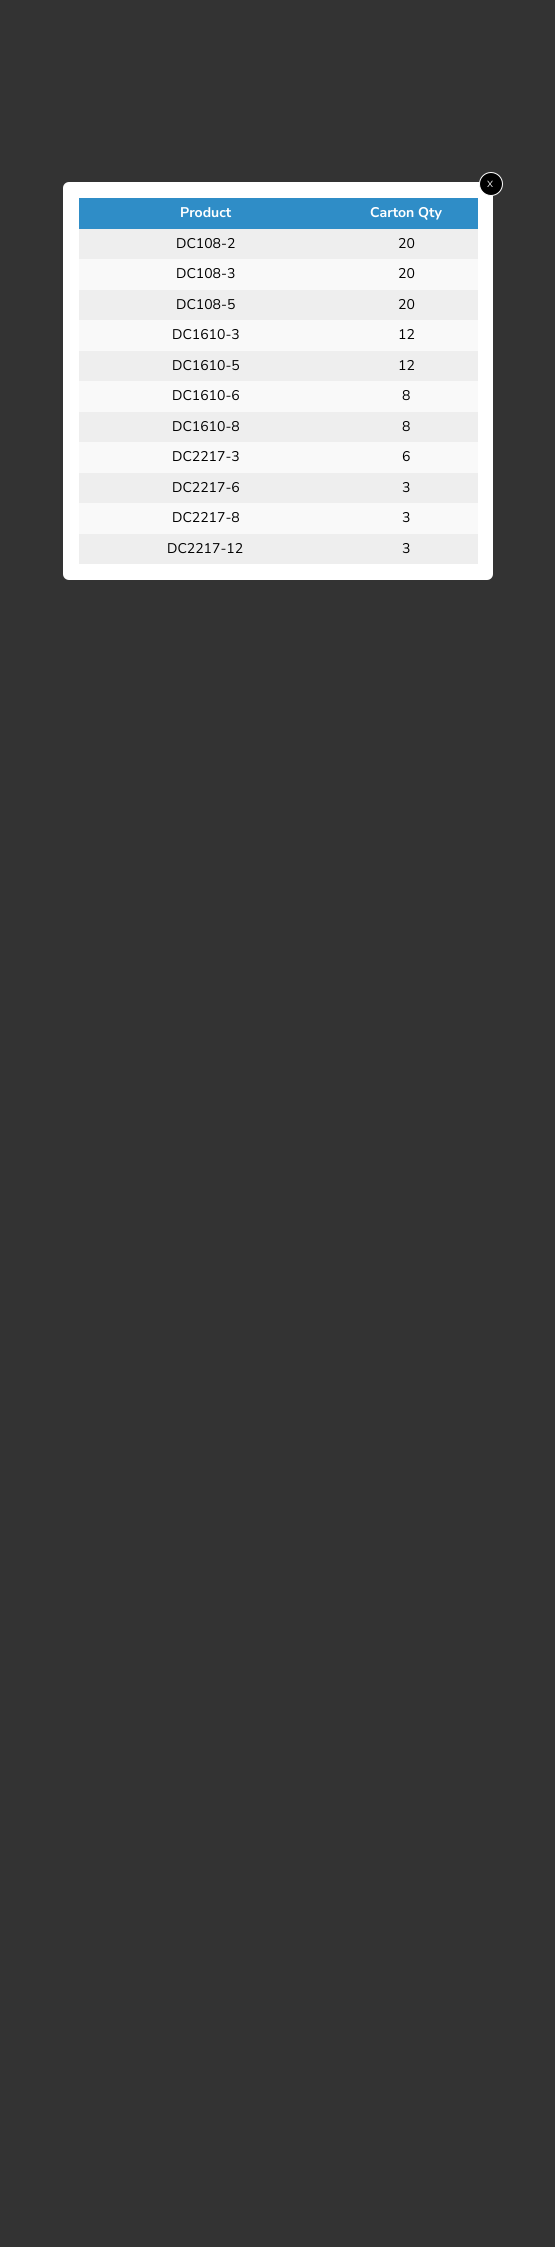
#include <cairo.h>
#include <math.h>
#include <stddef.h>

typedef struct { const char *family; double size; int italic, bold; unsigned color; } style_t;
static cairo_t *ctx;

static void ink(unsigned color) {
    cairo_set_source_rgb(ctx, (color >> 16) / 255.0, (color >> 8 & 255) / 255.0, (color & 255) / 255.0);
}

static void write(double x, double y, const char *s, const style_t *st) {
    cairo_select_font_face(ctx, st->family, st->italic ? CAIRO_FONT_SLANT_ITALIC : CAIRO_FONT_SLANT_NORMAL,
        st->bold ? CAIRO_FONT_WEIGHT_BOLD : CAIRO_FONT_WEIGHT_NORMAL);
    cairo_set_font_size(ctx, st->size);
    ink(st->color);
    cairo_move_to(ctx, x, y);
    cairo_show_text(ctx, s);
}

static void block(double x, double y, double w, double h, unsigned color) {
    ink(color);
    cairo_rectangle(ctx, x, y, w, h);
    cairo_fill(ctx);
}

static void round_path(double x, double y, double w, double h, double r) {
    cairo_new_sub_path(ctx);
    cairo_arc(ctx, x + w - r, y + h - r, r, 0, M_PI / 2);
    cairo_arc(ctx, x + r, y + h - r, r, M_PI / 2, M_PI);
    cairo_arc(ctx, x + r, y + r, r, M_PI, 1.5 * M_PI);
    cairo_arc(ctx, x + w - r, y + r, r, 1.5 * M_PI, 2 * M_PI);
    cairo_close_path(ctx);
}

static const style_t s1 = {"Raleway", 12, 0, 0, 0xffffff};
static const style_t s2 = {"Nunito Sans", 14, 0, 1, 0xffffff};
static const style_t s3 = {"Nunito Sans", 14, 0, 0, 0x000000};

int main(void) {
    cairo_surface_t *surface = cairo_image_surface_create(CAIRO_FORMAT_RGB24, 555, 2247);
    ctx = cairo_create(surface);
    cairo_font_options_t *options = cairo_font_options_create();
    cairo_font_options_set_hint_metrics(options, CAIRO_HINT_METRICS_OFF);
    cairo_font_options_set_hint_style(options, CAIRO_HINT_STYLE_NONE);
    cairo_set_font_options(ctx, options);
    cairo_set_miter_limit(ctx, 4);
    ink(0x333333);
    cairo_paint(ctx);
    ink(0xffffff);
    round_path(63, 182, 430, 398, 6);
    cairo_fill(ctx);
    ink(0x000000);
    cairo_arc(ctx, 491, 184, 11.5, 0, 2 * M_PI);
    cairo_fill_preserve(ctx);
    ink(0xffffff);
    cairo_set_line_width(ctx, 1);
    cairo_stroke(ctx);
    write(487, 187, "x", &s1);
    block(79, 198, 399, 31, 0x2f8dc7);
    write(180, 217, "Product", &s2);
    write(370, 217, "Carton Qty", &s2);
    block(79, 229, 399, 30, 0xeeeeee);
    write(176, 248, "DC108-2", &s3);
    write(398, 248, "20", &s3);
    block(79, 259, 399, 31, 0xf9f9f9);
    write(176, 278, "DC108-3", &s3);
    write(398, 278, "20", &s3);
    block(79, 290, 399, 30, 0xeeeeee);
    write(176, 309, "DC108-5", &s3);
    write(398, 309, "20", &s3);
    block(79, 320, 399, 31, 0xf9f9f9);
    write(172, 339, "DC1610-3", &s3);
    write(398, 339, "12", &s3);
    block(79, 351, 399, 30, 0xeeeeee);
    write(172, 370, "DC1610-5", &s3);
    write(398, 370, "12", &s3);
    block(79, 381, 399, 31, 0xf9f9f9);
    write(172, 400, "DC1610-6", &s3);
    write(402, 400, "8", &s3);
    block(79, 412, 399, 30, 0xeeeeee);
    write(172, 431, "DC1610-8", &s3);
    write(402, 431, "8", &s3);
    block(79, 442, 399, 31, 0xf9f9f9);
    write(172, 461, "DC2217-3", &s3);
    write(402, 461, "6", &s3);
    block(79, 473, 399, 30, 0xeeeeee);
    write(172, 492, "DC2217-6", &s3);
    write(402, 492, "3", &s3);
    block(79, 503, 399, 31, 0xf9f9f9);
    write(172, 522, "DC2217-8", &s3);
    write(402, 522, "3", &s3);
    block(79, 534, 399, 30, 0xeeeeee);
    write(167, 553, "DC2217-12", &s3);
    write(402, 553, "3", &s3);
    cairo_surface_write_to_png(surface, "screenshot.png");
    cairo_font_options_destroy(options);
    cairo_destroy(ctx);
    cairo_surface_destroy(surface);
    return 0;
}
